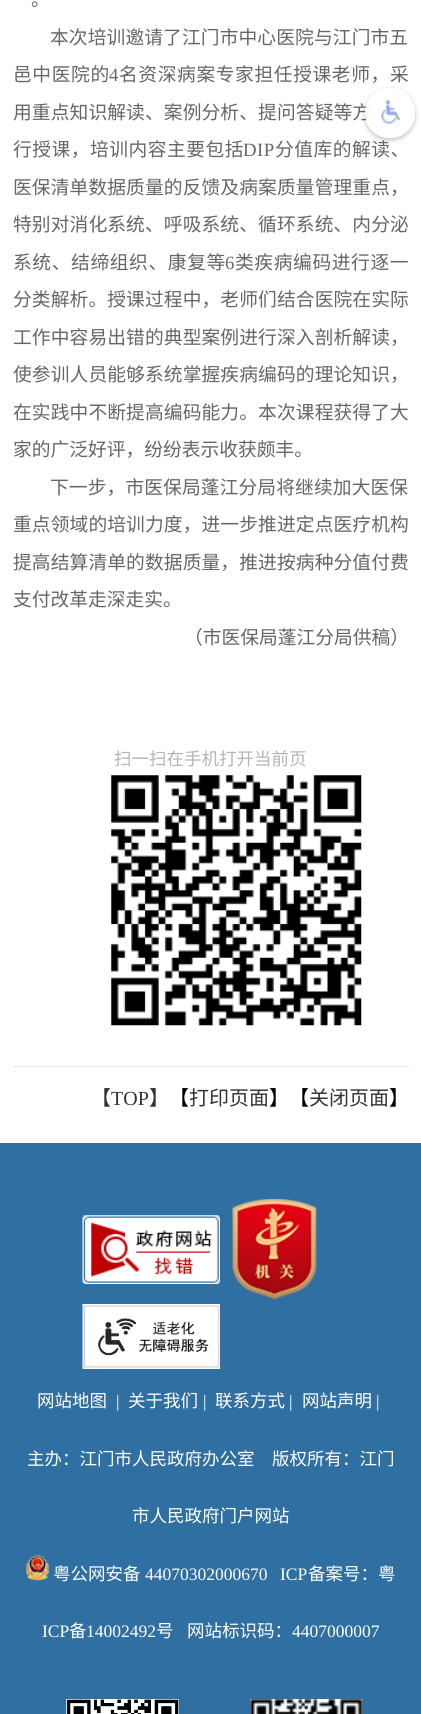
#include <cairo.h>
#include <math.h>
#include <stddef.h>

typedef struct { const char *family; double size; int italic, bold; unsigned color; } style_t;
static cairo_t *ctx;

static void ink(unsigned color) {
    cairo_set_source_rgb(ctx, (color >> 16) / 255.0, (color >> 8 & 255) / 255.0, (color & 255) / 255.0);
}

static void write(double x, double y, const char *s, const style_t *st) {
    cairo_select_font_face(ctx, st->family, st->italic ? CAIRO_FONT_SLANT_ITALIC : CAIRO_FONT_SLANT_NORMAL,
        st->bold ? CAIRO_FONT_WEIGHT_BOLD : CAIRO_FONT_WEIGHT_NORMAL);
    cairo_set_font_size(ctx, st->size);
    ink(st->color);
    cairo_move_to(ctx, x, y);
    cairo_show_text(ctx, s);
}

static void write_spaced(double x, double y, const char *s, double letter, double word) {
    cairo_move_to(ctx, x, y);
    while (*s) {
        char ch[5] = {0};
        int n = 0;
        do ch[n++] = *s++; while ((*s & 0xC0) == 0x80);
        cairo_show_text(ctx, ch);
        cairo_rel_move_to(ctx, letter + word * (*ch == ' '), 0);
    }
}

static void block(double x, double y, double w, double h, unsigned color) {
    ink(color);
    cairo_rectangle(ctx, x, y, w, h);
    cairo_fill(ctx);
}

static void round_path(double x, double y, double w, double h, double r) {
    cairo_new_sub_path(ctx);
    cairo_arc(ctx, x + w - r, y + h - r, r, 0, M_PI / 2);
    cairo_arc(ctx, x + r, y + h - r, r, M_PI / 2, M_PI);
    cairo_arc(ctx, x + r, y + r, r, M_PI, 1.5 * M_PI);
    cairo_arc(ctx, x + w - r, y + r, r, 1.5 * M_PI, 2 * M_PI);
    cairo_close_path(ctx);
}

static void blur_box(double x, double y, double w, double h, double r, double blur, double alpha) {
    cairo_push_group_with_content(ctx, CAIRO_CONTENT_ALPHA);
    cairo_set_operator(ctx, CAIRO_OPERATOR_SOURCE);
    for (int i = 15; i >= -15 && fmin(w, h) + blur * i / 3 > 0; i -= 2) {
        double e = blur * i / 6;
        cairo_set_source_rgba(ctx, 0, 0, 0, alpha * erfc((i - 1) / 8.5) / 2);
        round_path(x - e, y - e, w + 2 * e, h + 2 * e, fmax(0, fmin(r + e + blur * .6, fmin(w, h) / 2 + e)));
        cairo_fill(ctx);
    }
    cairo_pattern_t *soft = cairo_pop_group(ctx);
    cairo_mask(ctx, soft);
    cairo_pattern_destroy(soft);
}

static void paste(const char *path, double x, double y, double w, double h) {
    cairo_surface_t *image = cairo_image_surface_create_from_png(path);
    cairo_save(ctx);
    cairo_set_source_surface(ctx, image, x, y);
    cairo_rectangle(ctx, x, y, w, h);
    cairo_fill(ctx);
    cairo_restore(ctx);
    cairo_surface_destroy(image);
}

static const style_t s1 = {"Noto Sans CJK SC", 18.75, 0, 0, 0x666666};
static const style_t s2 = {"Noto Sans CJK SC", 17.5, 0, 0, 0xb5b5b5};
static const style_t s3 = {"Noto Sans CJK SC", 20, 0, 0, 0x333333};
static const style_t s4 = {"Liberation Serif", 20, 0, 0, 0x333333};
static const style_t s5 = {"Noto Sans CJK SC", 20, 0, 0, 0x000000};
static const style_t s6 = {"Noto Sans CJK SC", 17.5, 0, 0, 0xffffff};
static const style_t s7 = {"Liberation Serif", 17.5, 0, 0, 0xffffff};

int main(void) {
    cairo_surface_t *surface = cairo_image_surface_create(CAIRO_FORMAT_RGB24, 421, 1714);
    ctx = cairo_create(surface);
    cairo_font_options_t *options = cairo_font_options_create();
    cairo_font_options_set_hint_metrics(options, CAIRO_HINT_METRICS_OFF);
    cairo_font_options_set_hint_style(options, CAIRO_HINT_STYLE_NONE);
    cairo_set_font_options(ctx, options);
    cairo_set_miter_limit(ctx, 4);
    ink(0x306fa2);
    cairo_paint(ctx);
    block(0, 0, 421, 1143, 0xffffff);
    write(31, 6, "。", &s1);
    write_spaced(50, 44, "本次培训邀请了江门市中心医院与江门市五", 0.1, 0);
    write_spaced(13, 81, "邑中医院的", 0.6, 0);
    cairo_select_font_face(ctx, "Liberation Serif", CAIRO_FONT_SLANT_NORMAL, CAIRO_FONT_WEIGHT_NORMAL);
    write_spaced(109, 81, "4", 0.6, 0);
    cairo_select_font_face(ctx, "Noto Sans CJK SC", CAIRO_FONT_SLANT_NORMAL, CAIRO_FONT_WEIGHT_NORMAL);
    write_spaced(119, 81, "名资深病案专家担任授课老师，采", 0.6, 0);
    write_spaced(13, 119, "用重点知识解读、案例分析、提问答疑等方", 0.1, 0);
    write_spaced(13, 156, "行授课，培训内容主要包括", 0.5, 0);
    cairo_select_font_face(ctx, "Liberation Serif", CAIRO_FONT_SLANT_NORMAL, CAIRO_FONT_WEIGHT_NORMAL);
    write_spaced(243, 156, "DIP", 0.5, 0);
    cairo_select_font_face(ctx, "Noto Sans CJK SC", CAIRO_FONT_SLANT_NORMAL, CAIRO_FONT_WEIGHT_NORMAL);
    write_spaced(275, 156, "分值库的解读、", 0.5, 0);
    write_spaced(13, 194, "医保清单数据质量的反馈及病案质量管理重点，", 0.1, 0);
    write_spaced(13, 231, "特别对消化系统、呼吸系统、循环系统、内分泌", 0.1, 0);
    write_spaced(13, 269, "系统、结缔组织、康复等", 0.6, 0);
    cairo_select_font_face(ctx, "Liberation Serif", CAIRO_FONT_SLANT_NORMAL, CAIRO_FONT_WEIGHT_NORMAL);
    write_spaced(225, 269, "6", 0.6, 0);
    cairo_select_font_face(ctx, "Noto Sans CJK SC", CAIRO_FONT_SLANT_NORMAL, CAIRO_FONT_WEIGHT_NORMAL);
    write_spaced(235, 269, "类疾病编码进行逐一", 0.6, 0);
    write_spaced(13, 306, "分类解析。授课过程中，老师们结合医院在实际", 0.1, 0);
    write_spaced(13, 344, "工作中容易出错的典型案例进行深入剖析解读，", 0.1, 0);
    write_spaced(13, 381, "使参训人员能够系统掌握疾病编码的理论知识，", 0.1, 0);
    write_spaced(13, 419, "在实践中不断提高编码能力。本次课程获得了大", 0.1, 0);
    write(13, 456, "家的广泛好评，纷纷表示收获颇丰。", &s1);
    write_spaced(50, 494, "下一步，市医保局蓬江分局将继续加大医保", 0.1, 0);
    write_spaced(13, 531, "重点领域的培训力度，进一步推进定点医疗机构", 0.1, 0);
    write_spaced(13, 569, "提高结算清单的数据质量，推进按病种分值付费", 0.1, 0);
    write(13, 606, "支付改革走深走实。", &s1);
    write(184, 644, "（市医保局蓬江分局供稿）", &s1);
    write(114, 765, "扫一扫在手机打开当前页", &s2);
    paste("pic1.png", 111, 775, 251, 251);
    block(13, 1066, 396, 1, 0xe5e5e5);
    write(91, 1105, "【", &s3);
    write(111, 1105, "TOP", &s4);
    write(149, 1105, "】", &s3);
    write(169, 1105, "【", &s5);
    write(189, 1105, "打印页面", &s3);
    write(269, 1105, "】【", &s5);
    write(309, 1105, "关闭页面", &s3);
    write(389, 1105, "】", &s5);
    cairo_save(ctx);
    cairo_set_fill_rule(ctx, CAIRO_FILL_RULE_EVEN_ODD);
    cairo_new_path(ctx);
    cairo_move_to(ctx, 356, 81);
    cairo_line_to(ctx, 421, 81);
    cairo_line_to(ctx, 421, 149);
    cairo_line_to(ctx, 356, 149);
    cairo_close_path(ctx);
    cairo_move_to(ctx, 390, 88);
    cairo_curve_to(ctx, 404, 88, 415, 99, 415, 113);
    cairo_curve_to(ctx, 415, 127, 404, 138, 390, 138);
    cairo_curve_to(ctx, 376, 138, 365, 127, 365, 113);
    cairo_curve_to(ctx, 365, 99, 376, 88, 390, 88);
    cairo_close_path(ctx);
    cairo_clip(ctx);
    ink(0x000000);
    blur_box(365, 90, 50, 50, 25, 2.5, 0.25);
    cairo_restore(ctx);
    cairo_set_source_rgba(ctx, 1, 1, 1, 0.9);
    cairo_arc(ctx, 390, 113, 25, 0, 2 * M_PI);
    cairo_fill(ctx);
    paste("pic2.png", 381, 100, 19, 24);
    paste("pic3.png", 82, 1215, 138, 69);
    paste("pic4.png", 232, 1199, 85, 100);
    paste("pic5.png", 82, 1304, 138, 65);
    write(37, 1407, "网站地图", &s6);
    write(116, 1407, "|", &s7);
    write(128, 1407, "关于我们", &s6);
    write(203, 1407, "|", &s7);
    write(215, 1407, "联系方式", &s6);
    write(289, 1407, "|", &s7);
    write(302, 1407, "网站声明", &s6);
    write(376, 1407, "|", &s7);
    write(27, 1465, "主办：江门市人民政府办公室", &s6);
    write(272, 1465, "版权所有：江门", &s6);
    write(132, 1522, "市人民政府门户网站", &s6);
    paste("pic6.png", 26, 1555, 23, 26);
    write(53, 1580, "粤公网安备", &s6);
    write(145, 1580, "44070302000670", &s7);
    write(280, 1580, "ICP", &s7);
    write(308, 1580, "备案号：粤", &s6);
    write(42, 1637, "ICP", &s7);
    write(69, 1637, "备", &s6);
    write(86, 1637, "14002492", &s7);
    write(156, 1637, "号", &s6);
    write(187, 1637, "网站标识码：", &s6);
    write(292, 1637, "4407000007", &s7);
    paste("pic7.png", 66, 1699, 113, 15);
    paste("pic8.png", 250, 1699, 113, 15);
    cairo_surface_write_to_png(surface, "screenshot.png");
    cairo_font_options_destroy(options);
    cairo_destroy(ctx);
    cairo_surface_destroy(surface);
    return 0;
}
